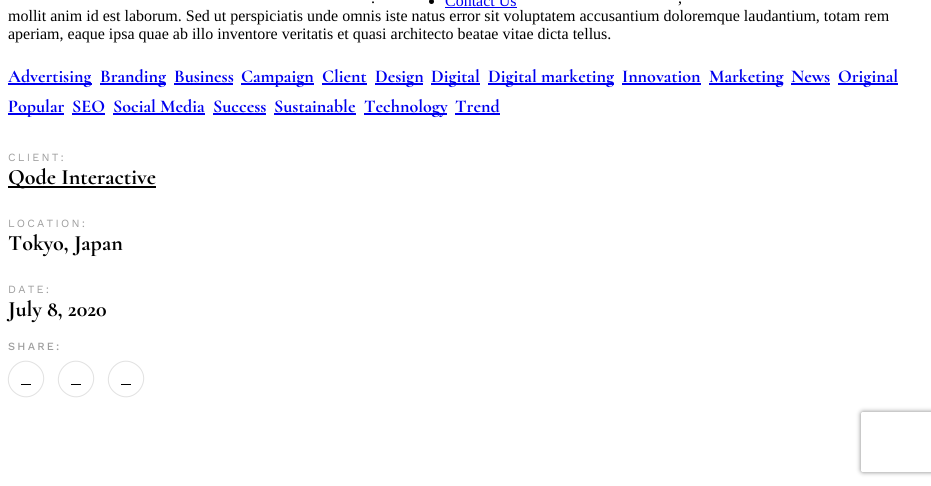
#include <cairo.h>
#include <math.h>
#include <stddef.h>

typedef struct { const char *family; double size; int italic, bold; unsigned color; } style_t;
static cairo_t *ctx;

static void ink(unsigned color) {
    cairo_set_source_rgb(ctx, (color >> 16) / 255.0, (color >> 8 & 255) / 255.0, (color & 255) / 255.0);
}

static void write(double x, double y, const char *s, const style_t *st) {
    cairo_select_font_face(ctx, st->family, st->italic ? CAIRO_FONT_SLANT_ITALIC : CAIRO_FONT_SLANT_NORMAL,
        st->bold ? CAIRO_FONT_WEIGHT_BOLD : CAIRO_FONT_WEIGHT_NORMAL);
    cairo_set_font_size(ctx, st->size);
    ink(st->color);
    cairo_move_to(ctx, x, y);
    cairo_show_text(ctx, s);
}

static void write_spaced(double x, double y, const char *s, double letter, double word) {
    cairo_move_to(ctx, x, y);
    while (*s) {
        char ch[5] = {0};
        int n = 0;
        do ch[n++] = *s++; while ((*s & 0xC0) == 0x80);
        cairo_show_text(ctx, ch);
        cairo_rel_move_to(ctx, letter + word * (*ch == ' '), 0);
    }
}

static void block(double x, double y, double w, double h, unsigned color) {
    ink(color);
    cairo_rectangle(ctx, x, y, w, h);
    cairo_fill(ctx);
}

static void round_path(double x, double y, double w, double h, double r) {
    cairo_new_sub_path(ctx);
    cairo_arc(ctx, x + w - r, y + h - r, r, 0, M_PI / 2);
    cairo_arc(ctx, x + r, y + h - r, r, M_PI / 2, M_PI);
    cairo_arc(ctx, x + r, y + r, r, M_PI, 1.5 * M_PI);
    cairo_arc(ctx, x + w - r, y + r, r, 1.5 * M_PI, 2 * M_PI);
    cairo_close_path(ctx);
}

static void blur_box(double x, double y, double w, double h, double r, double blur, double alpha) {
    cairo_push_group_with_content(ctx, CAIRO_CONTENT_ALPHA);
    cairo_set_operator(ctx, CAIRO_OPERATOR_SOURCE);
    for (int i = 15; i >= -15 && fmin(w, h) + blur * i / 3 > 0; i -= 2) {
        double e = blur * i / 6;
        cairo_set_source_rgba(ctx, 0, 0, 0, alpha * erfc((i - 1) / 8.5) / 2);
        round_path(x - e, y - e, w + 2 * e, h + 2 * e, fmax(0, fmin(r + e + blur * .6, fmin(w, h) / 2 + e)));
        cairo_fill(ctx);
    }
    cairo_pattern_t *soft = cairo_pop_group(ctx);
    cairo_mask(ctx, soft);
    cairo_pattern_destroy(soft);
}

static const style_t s1 = {"Liberation Serif", 16, 0, 0, 0x0000ee};
static const style_t s2 = {"Liberation Serif", 16, 0, 0, 0x000000};
static const style_t s3 = {"Cormorant", 18, 0, 1, 0x0000ee};
static const style_t s4 = {"Cormorant", 22, 0, 1, 0x000000};

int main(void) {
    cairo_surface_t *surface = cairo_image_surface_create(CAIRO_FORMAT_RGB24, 931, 486);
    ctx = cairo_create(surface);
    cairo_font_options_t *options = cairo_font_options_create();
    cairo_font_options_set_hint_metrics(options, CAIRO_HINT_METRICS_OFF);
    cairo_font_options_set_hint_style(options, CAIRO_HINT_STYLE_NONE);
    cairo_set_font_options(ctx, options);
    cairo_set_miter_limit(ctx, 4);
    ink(0xffffff);
    cairo_paint(ctx);
    ink(0x000000);
    cairo_arc(ctx, 431.5, 1.5, 2.5, 0, 2 * M_PI);
    cairo_fill(ctx);
    write(445, 6, "Contact Us", &s1);
    block(445, 7, 72, 1, 0x0000ee);
    write(371, 3, ".", &s2);
    write(678, 3, ",", &s2);
    write(8, 21, "mollit anim id est laborum. Sed ut perspiciatis unde omnis iste natus error sit voluptatem accusantium doloremque laudantium, totam rem", &s2);
    write(8, 39, "aperiam, eaque ipsa quae ab illo inventore veritatis et quasi architecto beatae vitae dicta tellus.", &s2);
    block(8, 83, 84, 2, 0x0000ee);
    write(8, 82, "Advertising", &s3);
    block(100, 83, 66, 2, 0x0000ee);
    write(100, 82, "Branding", &s3);
    block(174, 83, 59, 2, 0x0000ee);
    write(174, 82, "Business", &s3);
    block(241, 83, 73, 2, 0x0000ee);
    write(241, 82, "Campaign", &s3);
    block(322, 83, 45, 2, 0x0000ee);
    write(322, 82, "Client", &s3);
    block(375, 83, 48, 2, 0x0000ee);
    write(375, 82, "Design", &s3);
    block(431, 83, 49, 2, 0x0000ee);
    write(431, 82, "Digital", &s3);
    block(488, 83, 126, 2, 0x0000ee);
    write(488, 82, "Digital marketing", &s3);
    block(622, 83, 79, 2, 0x0000ee);
    write(622, 82, "Innovation", &s3);
    block(709, 83, 74, 2, 0x0000ee);
    write(709, 82, "Marketing", &s3);
    block(791, 83, 39, 2, 0x0000ee);
    write(791, 82, "News", &s3);
    block(838, 83, 60, 2, 0x0000ee);
    write(838, 82, "Original", &s3);
    block(8, 113, 56, 2, 0x0000ee);
    write(8, 112, "Popular", &s3);
    block(72, 113, 33, 2, 0x0000ee);
    write(72, 112, "SEO", &s3);
    block(113, 113, 92, 2, 0x0000ee);
    write(113, 112, "Social Media", &s3);
    block(213, 113, 53, 2, 0x0000ee);
    write(213, 112, "Success", &s3);
    block(274, 113, 82, 2, 0x0000ee);
    write(274, 112, "Sustainable", &s3);
    block(364, 113, 83, 2, 0x0000ee);
    write(364, 112, "Technology", &s3);
    block(455, 113, 45, 2, 0x0000ee);
    write(455, 112, "Trend", &s3);
    cairo_select_font_face(ctx, "Work Sans", CAIRO_FONT_SLANT_NORMAL, CAIRO_FONT_WEIGHT_NORMAL);
    cairo_set_font_size(ctx, 11);
    ink(0x9e9e9e);
    write_spaced(8, 161, "CLIENT:", 2.25, 0);
    block(8, 186, 148, 2, 0x000000);
    write(8, 184, "Qode Interactive", &s4);
    cairo_select_font_face(ctx, "Work Sans", CAIRO_FONT_SLANT_NORMAL, CAIRO_FONT_WEIGHT_NORMAL);
    cairo_set_font_size(ctx, 11);
    ink(0x9e9e9e);
    write_spaced(8, 227, "LOCATION:", 2.25, 0);
    write(8, 250, "Tokyo, Japan", &s4);
    cairo_select_font_face(ctx, "Work Sans", CAIRO_FONT_SLANT_NORMAL, CAIRO_FONT_WEIGHT_NORMAL);
    cairo_set_font_size(ctx, 11);
    ink(0x9e9e9e);
    write_spaced(8, 293, "DATE:", 2.25, 0);
    write(8, 316, "July 8, 2020", &s4);
    cairo_select_font_face(ctx, "Work Sans Medium", CAIRO_FONT_SLANT_NORMAL, CAIRO_FONT_WEIGHT_NORMAL);
    cairo_set_font_size(ctx, 11);
    ink(0x9e9e9e);
    write_spaced(8, 350, "SHARE:", 2.25, 0);
    block(21, 384, 10, 1, 0x000000);
    cairo_new_path(ctx);
    cairo_move_to(ctx, 16, 393.5);
    cairo_curve_to(ctx, -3, 380, 17, 351.5, 36, 364.5);
    cairo_curve_to(ctx, 55, 378, 35, 406.5, 16, 393.5);
    ink(0xe1e1e1);
    cairo_set_line_width(ctx, 1);
    cairo_stroke(ctx);
    block(71, 384, 10, 1, 0x000000);
    cairo_new_path(ctx);
    cairo_move_to(ctx, 66, 393.5);
    cairo_curve_to(ctx, 47, 380, 67, 351.5, 86, 364.5);
    cairo_curve_to(ctx, 105, 378, 85, 406.5, 66, 393.5);
    ink(0xe1e1e1);
    cairo_stroke(ctx);
    block(121, 384, 10, 1, 0x000000);
    cairo_new_path(ctx);
    cairo_move_to(ctx, 116, 393.5);
    cairo_curve_to(ctx, 97, 380, 117, 351.5, 136, 364.5);
    cairo_curve_to(ctx, 155, 378, 135, 406.5, 116, 393.5);
    ink(0xe1e1e1);
    cairo_stroke(ctx);
    cairo_save(ctx);
    cairo_set_fill_rule(ctx, CAIRO_FILL_RULE_EVEN_ODD);
    cairo_new_path(ctx);
    cairo_move_to(ctx, 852, 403);
    cairo_line_to(ctx, 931, 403);
    cairo_line_to(ctx, 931, 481);
    cairo_line_to(ctx, 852, 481);
    cairo_close_path(ctx);
    cairo_move_to(ctx, 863, 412);
    cairo_line_to(ctx, 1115, 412);
    cairo_curve_to(ctx, 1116, 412, 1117, 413, 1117, 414);
    cairo_line_to(ctx, 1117, 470);
    cairo_curve_to(ctx, 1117, 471, 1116, 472, 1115, 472);
    cairo_line_to(ctx, 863, 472);
    cairo_curve_to(ctx, 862, 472, 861, 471, 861, 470);
    cairo_line_to(ctx, 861, 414);
    cairo_curve_to(ctx, 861, 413, 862, 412, 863, 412);
    cairo_close_path(ctx);
    cairo_clip(ctx);
    ink(0x808080);
    blur_box(861, 412, 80, 60, 2, 2.5, 1);
    cairo_restore(ctx);
    cairo_surface_write_to_png(surface, "screenshot.png");
    cairo_font_options_destroy(options);
    cairo_destroy(ctx);
    cairo_surface_destroy(surface);
    return 0;
}
